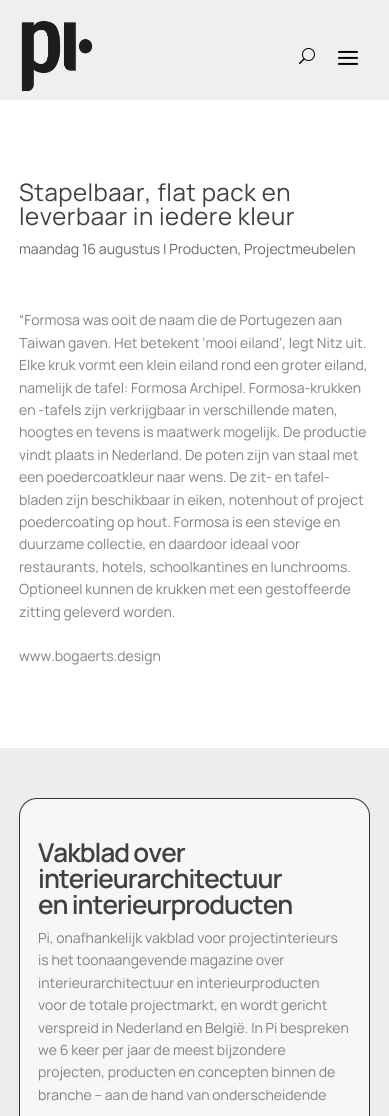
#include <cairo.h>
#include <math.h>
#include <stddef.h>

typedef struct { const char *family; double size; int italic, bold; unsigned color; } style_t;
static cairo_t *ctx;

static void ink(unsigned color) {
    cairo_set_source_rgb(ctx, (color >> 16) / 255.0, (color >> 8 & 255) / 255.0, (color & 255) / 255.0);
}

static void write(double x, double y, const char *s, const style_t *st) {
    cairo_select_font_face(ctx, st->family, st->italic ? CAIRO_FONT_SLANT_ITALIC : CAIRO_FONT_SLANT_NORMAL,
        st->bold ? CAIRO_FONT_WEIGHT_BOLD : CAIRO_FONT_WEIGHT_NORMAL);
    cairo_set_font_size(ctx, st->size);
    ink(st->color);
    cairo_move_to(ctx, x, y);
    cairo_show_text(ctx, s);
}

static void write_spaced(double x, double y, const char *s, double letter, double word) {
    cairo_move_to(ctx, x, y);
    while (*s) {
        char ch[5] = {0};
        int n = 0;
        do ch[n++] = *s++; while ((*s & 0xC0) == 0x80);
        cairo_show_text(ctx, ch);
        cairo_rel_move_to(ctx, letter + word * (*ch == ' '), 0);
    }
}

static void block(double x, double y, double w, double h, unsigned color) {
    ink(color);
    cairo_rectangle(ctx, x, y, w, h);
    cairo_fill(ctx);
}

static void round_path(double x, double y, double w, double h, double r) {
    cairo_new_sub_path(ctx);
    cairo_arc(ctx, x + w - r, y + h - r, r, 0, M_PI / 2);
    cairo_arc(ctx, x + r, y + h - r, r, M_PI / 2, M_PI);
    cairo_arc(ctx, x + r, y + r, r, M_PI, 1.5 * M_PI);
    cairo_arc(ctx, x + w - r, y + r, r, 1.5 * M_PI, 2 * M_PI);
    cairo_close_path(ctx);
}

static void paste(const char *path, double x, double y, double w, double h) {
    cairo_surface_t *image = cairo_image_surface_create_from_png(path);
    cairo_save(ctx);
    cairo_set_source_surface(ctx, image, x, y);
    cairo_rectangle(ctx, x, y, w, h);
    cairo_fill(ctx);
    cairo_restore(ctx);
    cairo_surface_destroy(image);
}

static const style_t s1 = {"Manrope", 14, 0, 0, 0x666666};
static const style_t s2 = {"Manrope", 14, 0, 0, 0x808080};

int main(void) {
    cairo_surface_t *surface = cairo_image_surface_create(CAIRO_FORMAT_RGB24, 389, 1116);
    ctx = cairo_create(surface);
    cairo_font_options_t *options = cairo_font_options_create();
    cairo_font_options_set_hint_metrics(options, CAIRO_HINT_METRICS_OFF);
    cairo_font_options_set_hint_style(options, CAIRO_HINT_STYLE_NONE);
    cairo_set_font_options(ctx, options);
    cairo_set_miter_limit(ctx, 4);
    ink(0xffffff);
    cairo_paint(ctx);
    block(0, 0, 389, 100, 0xefefef);
    paste("pic1.png", 21, 20, 72, 72);
    paste("pic2.png", 299, 48, 16, 16);
    paste("pic3.png", 338, 50, 20, 15);
    cairo_select_font_face(ctx, "Manrope", CAIRO_FONT_SLANT_NORMAL, CAIRO_FONT_WEIGHT_NORMAL);
    cairo_set_font_size(ctx, 24);
    ink(0x404040);
    write_spaced(19, 201, "Stapelbaar, flat pack en", 0.5, 0);
    write_spaced(19, 225, "leverbaar in iedere kleur", 0.5, 0);
    write(19, 254, "maandag 16 augustus | Producten, Projectmeubelen", &s1);
    write(19, 325, "“Formosa was ooit de naam die de Portugezen aan", &s2);
    write(19, 348, "Taiwan gaven. Het betekent ‘mooi eiland’, legt Nitz uit.", &s2);
    write(19, 370, "Elke kruk vormt een klein eiland rond een groter eiland,", &s2);
    write(19, 393, "namelijk de tafel: Formosa Archipel. Formosa-krukken", &s2);
    write(19, 415, "en -tafels zijn verkrijgbaar in verschillende maten,", &s2);
    write(19, 437, "hoogtes en tevens is maatwerk mogelijk. De productie", &s2);
    write(19, 460, "vindt plaats in Nederland. De poten zijn van staal met", &s2);
    write(19, 482, "een poedercoatkleur naar wens. De zit- en tafel-", &s2);
    write(19, 505, "bladen zijn beschikbaar in eiken, notenhout of project", &s2);
    write(19, 527, "poedercoating op hout. Formosa is een stevige en", &s2);
    write(19, 549, "duurzame collectie, en daardoor ideaal voor", &s2);
    write(19, 572, "restaurants, hotels, schoolkantines en lunchrooms.", &s2);
    write(19, 594, "Optioneel kunnen de krukken met een gestoffeerde", &s2);
    write(19, 617, "zitting geleverd worden.", &s2);
    write(19, 661, "www.bogaerts.design", &s2);
    block(0, 748, 389, 368, 0xededed);
    ink(0xf7f7f7);
    round_path(19.5, 798.5, 350, 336, 17.5);
    cairo_fill_preserve(ctx);
    ink(0x333333);
    cairo_set_line_width(ctx, 1);
    cairo_stroke(ctx);
    cairo_select_font_face(ctx, "Manrope SemiBold", CAIRO_FONT_SLANT_NORMAL, CAIRO_FONT_WEIGHT_NORMAL);
    cairo_set_font_size(ctx, 26);
    ink(0x404040);
    write_spaced(38, 862, "Vakblad over", -1, 0);
    write_spaced(38, 888, "interieurarchitectuur", -1, 0);
    write_spaced(38, 914, "en interieurproducten", -1, 0);
    write(38, 943, "Pi, onafhankelijk vakblad voor projectinterieurs", &s2);
    write(38, 965, "is het toonaangevende magazine over", &s2);
    write(38, 988, "interieurarchitectuur en interieurproducten", &s2);
    write(38, 1010, "voor de totale projectmarkt, en wordt gericht", &s2);
    write(38, 1033, "verspreid in Nederland en België. In Pi bespreken", &s2);
    write(38, 1055, "we 6 keer per jaar de meest bijzondere", &s2);
    write(38, 1077, "projecten, producten en concepten binnen de", &s2);
    write(38, 1100, "branche – aan de hand van onderscheidende", &s2);
    cairo_surface_write_to_png(surface, "screenshot.png");
    cairo_font_options_destroy(options);
    cairo_destroy(ctx);
    cairo_surface_destroy(surface);
    return 0;
}
